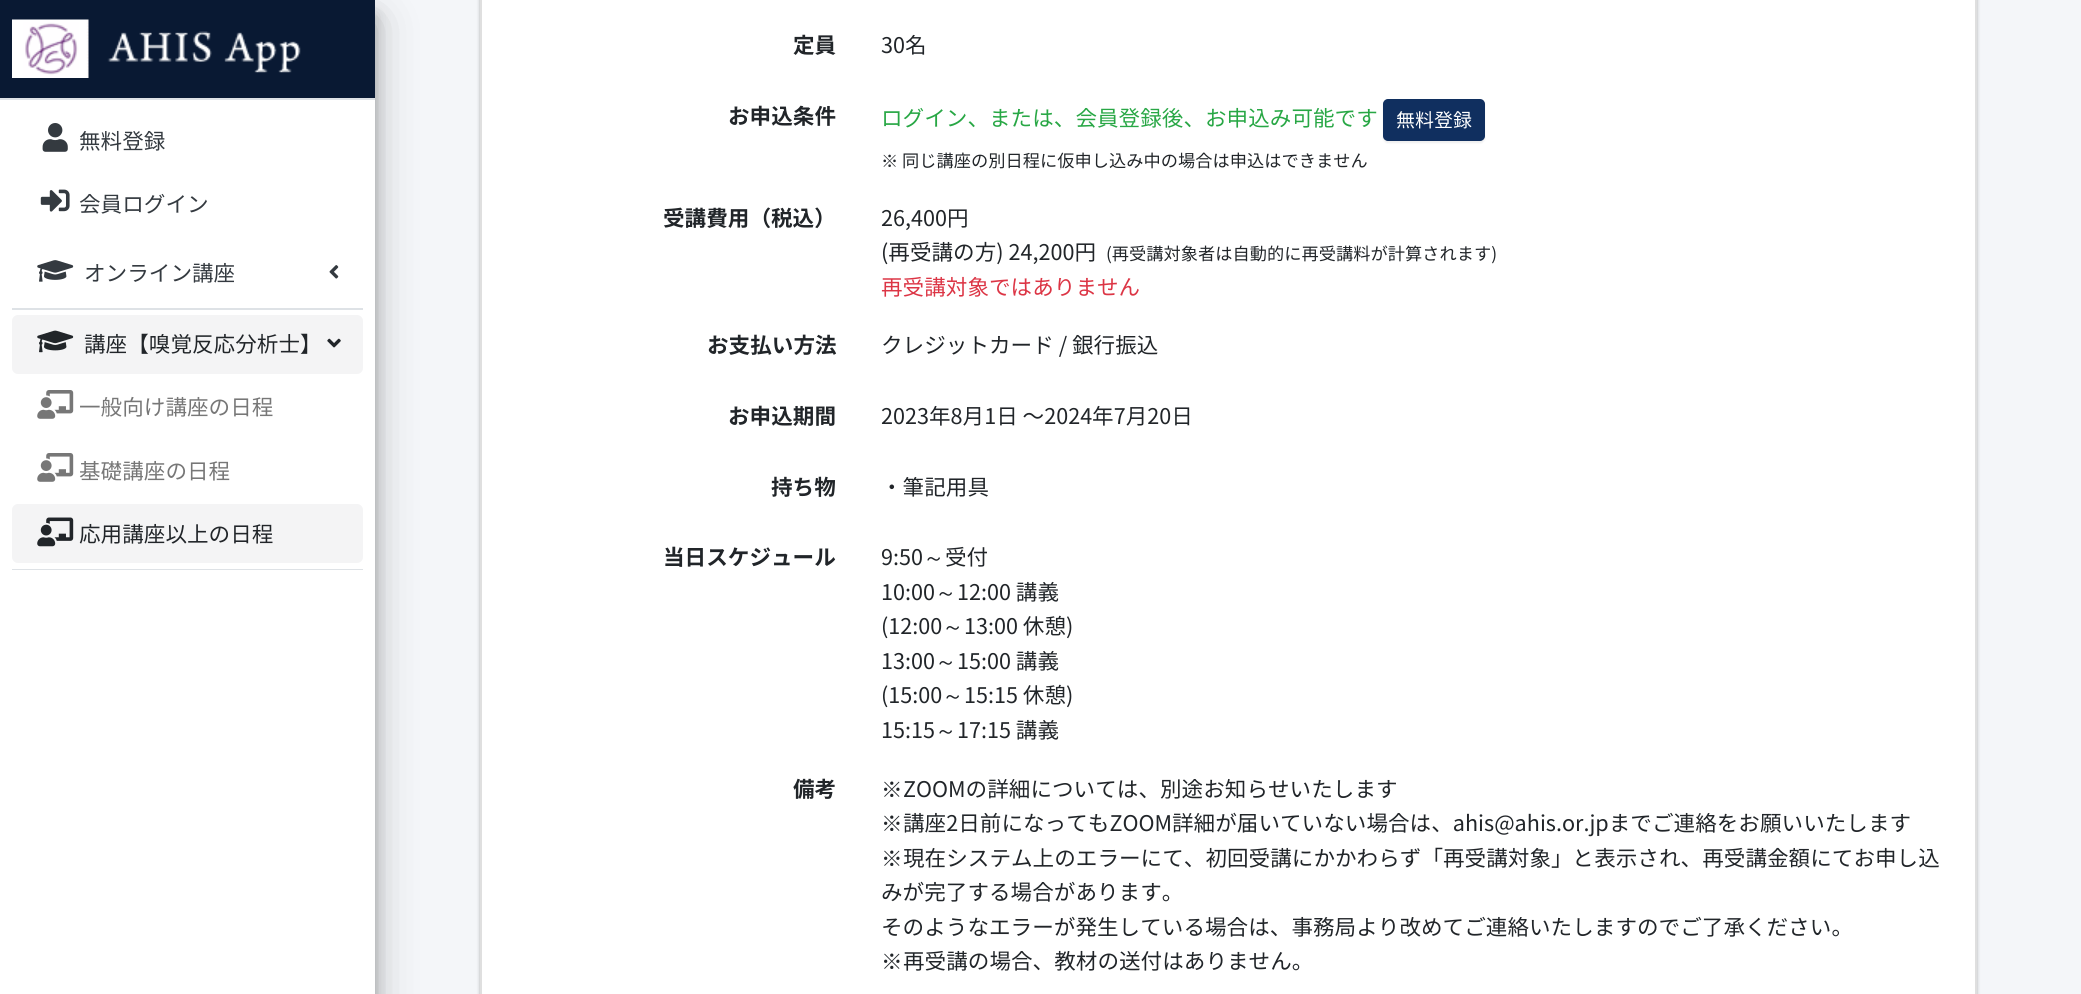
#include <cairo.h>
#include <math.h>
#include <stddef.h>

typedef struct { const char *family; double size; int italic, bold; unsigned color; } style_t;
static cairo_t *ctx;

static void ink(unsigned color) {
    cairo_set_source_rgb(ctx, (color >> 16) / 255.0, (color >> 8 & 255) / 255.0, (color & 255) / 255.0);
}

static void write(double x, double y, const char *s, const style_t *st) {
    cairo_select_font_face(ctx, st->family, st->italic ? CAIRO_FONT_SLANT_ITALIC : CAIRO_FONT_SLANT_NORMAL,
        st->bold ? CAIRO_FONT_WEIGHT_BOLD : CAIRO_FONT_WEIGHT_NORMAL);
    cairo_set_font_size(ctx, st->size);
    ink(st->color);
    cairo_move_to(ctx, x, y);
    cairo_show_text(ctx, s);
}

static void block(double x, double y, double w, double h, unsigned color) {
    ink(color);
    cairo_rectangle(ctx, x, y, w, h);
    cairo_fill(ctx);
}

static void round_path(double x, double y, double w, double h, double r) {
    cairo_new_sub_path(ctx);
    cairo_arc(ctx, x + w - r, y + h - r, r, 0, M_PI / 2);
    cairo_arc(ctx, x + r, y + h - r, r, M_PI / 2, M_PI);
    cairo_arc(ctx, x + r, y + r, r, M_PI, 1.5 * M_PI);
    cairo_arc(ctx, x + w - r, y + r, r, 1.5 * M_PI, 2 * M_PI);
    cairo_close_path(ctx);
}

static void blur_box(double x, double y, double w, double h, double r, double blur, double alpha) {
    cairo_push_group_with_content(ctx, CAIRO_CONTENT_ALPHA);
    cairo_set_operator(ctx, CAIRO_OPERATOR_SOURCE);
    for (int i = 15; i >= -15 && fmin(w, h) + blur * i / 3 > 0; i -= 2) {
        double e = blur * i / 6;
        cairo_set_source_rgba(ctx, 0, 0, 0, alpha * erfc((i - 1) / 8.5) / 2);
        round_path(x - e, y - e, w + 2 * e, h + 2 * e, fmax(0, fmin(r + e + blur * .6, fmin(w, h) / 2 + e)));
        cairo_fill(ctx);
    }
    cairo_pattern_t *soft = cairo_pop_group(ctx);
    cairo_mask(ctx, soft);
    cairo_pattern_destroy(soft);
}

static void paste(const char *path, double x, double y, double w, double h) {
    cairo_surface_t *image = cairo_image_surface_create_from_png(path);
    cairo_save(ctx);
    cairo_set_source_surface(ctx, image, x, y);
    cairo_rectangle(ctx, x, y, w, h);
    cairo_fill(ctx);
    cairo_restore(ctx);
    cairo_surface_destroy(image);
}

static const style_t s1 = {"Noto Sans JP", 21.6, 0, 0, 0x343a40};
static const style_t s2 = {"Noto Sans JP", 21.6, 0, 0, 0x212529};
static const style_t s3 = {"Noto Sans JP", 21.6, 0, 0, 0x777777};
static const style_t s4 = {"Noto Sans JP", 21.6, 0, 1, 0x212529};
static const style_t s5 = {"Noto Sans JP", 21.6, 0, 0, 0x28a745};
static const style_t s6 = {"Noto Sans JP", 19, 0, 0, 0xffffff};
static const style_t s7 = {"WenQuanYi Zen Hei Medium", 17.25, 0, 0, 0x212529};
static const style_t s8 = {"Noto Sans JP", 17.25, 0, 0, 0x212529};
static const style_t s9 = {"Noto Sans JP", 21.6, 0, 0, 0xdc3545};
static const style_t s10 = {"WenQuanYi Zen Hei Medium", 21.6, 0, 0, 0x212529};

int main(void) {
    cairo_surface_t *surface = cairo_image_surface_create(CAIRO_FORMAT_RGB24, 2081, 994);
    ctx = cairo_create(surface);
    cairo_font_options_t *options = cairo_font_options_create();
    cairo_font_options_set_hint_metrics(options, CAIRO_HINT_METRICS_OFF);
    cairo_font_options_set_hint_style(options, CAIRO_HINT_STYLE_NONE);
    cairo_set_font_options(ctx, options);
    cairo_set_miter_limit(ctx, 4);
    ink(0xf4f6f9);
    cairo_paint(ctx);
    ink(0x000000);
    blur_box(0, 15, 375, 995, 0, 7.5, 0.22);
    blur_box(0, 21, 375, 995, 0, 21, 0.25);
    block(0, 100, 375, 894, 0xffffff);
    block(0, 0, 375, 98, 0x091933);
    block(0, 98, 375, 2, 0xdee2e6);
    paste("pic1.png", 12, 19, 289, 59);
    paste("pic2.png", 42, 123, 26, 29);
    write(79, 149, "無料登録", &s1);
    paste("pic3.png", 40, 189, 30, 23);
    write(79, 212, "会員ログイン", &s1);
    block(12, 308, 351, 2, 0xdee2e6);
    paste("pic4.png", 37, 260, 37, 22);
    write(84, 281, "オンライン講座", &s1);
    paste("pic5.png", 329, 265, 10, 14);
    block(12, 569, 351, 1, 0xdee2e6);
    ink(0xf4f4f5);
    round_path(12, 315, 351, 59, 6);
    cairo_fill(ctx);
    paste("pic6.png", 37, 330, 37, 23);
    write(84, 352, "講座【嗅覚反応分析士】", &s2);
    paste("pic7.png", 327, 338, 14, 10);
    paste("pic8.png", 37, 390, 37, 29);
    write(79, 415, "一般向け講座の日程", &s3);
    paste("pic8.png", 37, 453, 37, 29);
    write(79, 479, "基礎講座の日程", &s3);
    ink(0xf4f4f5);
    round_path(12, 504, 351, 59, 6);
    cairo_fill(ctx);
    paste("pic9.png", 37, 517, 37, 30);
    write(79, 542, "応用講座以上の日程", &s2);
    ink(0x000000);
    blur_box(480, -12, 1497, 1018, 6, 2, 0.2);
    blur_box(480, -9, 1497, 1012, 6, 1, 0.12);
    ink(0xffffff);
    cairo_rectangle(ctx, 481, -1, 1495, 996);
    cairo_fill_preserve(ctx);
    ink(0xdfdfdf);
    cairo_stroke(ctx);
    write(793, 53, "定員", &s4);
    write(881, 53, "30名", &s2);
    write(728, 124, "お申込条件", &s4);
    write(881, 126, "ログイン、または、会員登録後、お申込み可能です", &s5);
    ink(0x000000);
    blur_box(1383, 101, 102, 42, 5, 1, 0.07);
    ink(0x102f5f);
    round_path(1384, 100, 100, 40, 4);
    cairo_fill_preserve(ctx);
    cairo_stroke(ctx);
    write(1396, 127, "無料登録", &s6);
    write(881, 167, "※", &s7);
    write(902, 167, "同じ講座の別日程に仮申し込み中の場合は申込はできません", &s8);
    write(663, 226, "受講費用（税込）", &s4);
    write(881, 226, "26,400円", &s2);
    write(881, 260, "(再受講の方) 24,200円", &s2);
    write(1106, 260, "(再受講対象者は自動的に再受講料が計算されます)", &s8);
    write(881, 295, "再受講対象ではありません", &s9);
    write(707, 353, "お支払い方法", &s4);
    write(881, 353, "クレジットカード / 銀行振込", &s2);
    write(728, 424, "お申込期間", &s4);
    write(881, 424, "2023年8月1日 〜2024年7月20日", &s2);
    write(771, 495, "持ち物", &s4);
    write(881, 495, "・筆記用具", &s2);
    write(663, 565, "当日スケジュール", &s4);
    write(881, 565, "9:50", &s2);
    write(923, 565, "～", &s10);
    write(945, 565, "受付", &s2);
    write(881, 600, "10:00", &s2);
    write(935, 600, "～", &s10);
    write(957, 600, "12:00 講義", &s2);
    write(881, 634, "(12:00", &s2);
    write(942, 634, "～", &s10);
    write(964, 634, "13:00 休憩)", &s2);
    write(881, 669, "13:00", &s2);
    write(935, 669, "～", &s10);
    write(957, 669, "15:00 講義", &s2);
    write(881, 703, "(15:00", &s2);
    write(942, 703, "～", &s10);
    write(964, 703, "15:15 休憩)", &s2);
    write(881, 738, "15:15", &s2);
    write(935, 738, "～", &s10);
    write(957, 738, "17:15 講義", &s2);
    write(793, 797, "備考", &s4);
    write(881, 797, "※", &s10);
    write(903, 797, "ZOOMの詳細については、別途お知らせいたします", &s2);
    write(881, 831, "※", &s10);
    write(903, 831, "講座2日前になってもZOOM詳細が届いていない場合は、ahis@ahis.or.jpまでご連絡をお願いいたします", &s2);
    write(881, 866, "※", &s10);
    write(903, 866, "現在システム上のエラーにて、初回受講にかかわらず「再受講対象」と表示され、再受講金額にてお申し込", &s2);
    write(881, 900, "みが完了する場合があります。", &s2);
    write(881, 935, "そのようなエラーが発生している場合は、事務局より改めてご連絡いたしますのでご了承ください。", &s2);
    write(881, 969, "※", &s10);
    write(903, 969, "再受講の場合、教材の送付はありません。", &s2);
    cairo_surface_write_to_png(surface, "screenshot.png");
    cairo_font_options_destroy(options);
    cairo_destroy(ctx);
    cairo_surface_destroy(surface);
    return 0;
}
